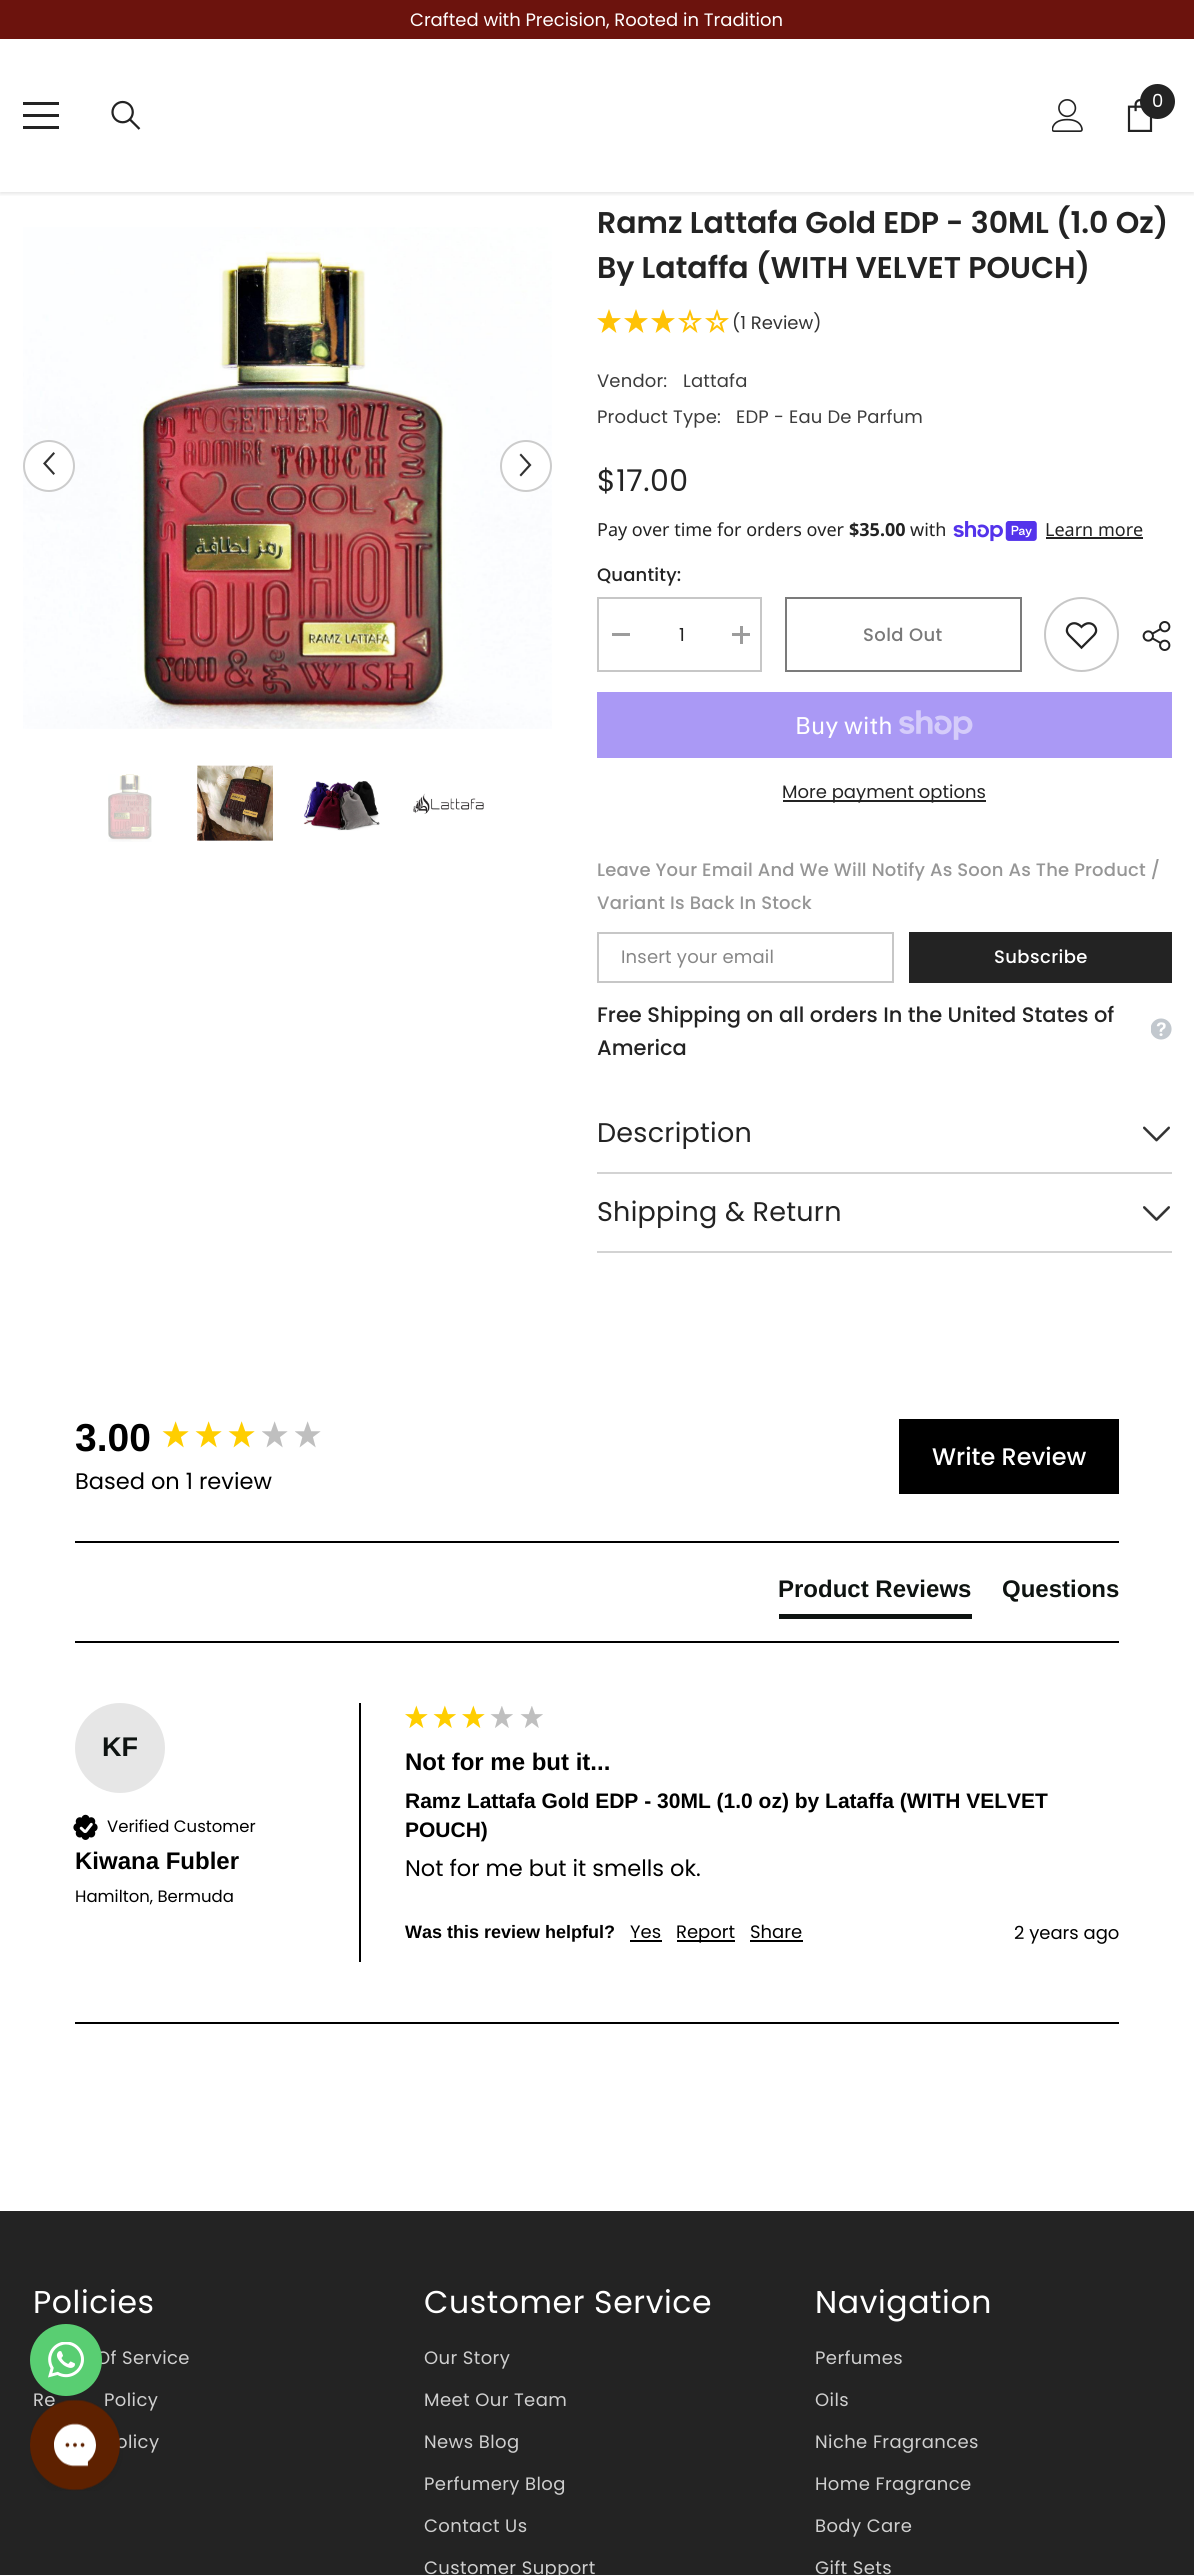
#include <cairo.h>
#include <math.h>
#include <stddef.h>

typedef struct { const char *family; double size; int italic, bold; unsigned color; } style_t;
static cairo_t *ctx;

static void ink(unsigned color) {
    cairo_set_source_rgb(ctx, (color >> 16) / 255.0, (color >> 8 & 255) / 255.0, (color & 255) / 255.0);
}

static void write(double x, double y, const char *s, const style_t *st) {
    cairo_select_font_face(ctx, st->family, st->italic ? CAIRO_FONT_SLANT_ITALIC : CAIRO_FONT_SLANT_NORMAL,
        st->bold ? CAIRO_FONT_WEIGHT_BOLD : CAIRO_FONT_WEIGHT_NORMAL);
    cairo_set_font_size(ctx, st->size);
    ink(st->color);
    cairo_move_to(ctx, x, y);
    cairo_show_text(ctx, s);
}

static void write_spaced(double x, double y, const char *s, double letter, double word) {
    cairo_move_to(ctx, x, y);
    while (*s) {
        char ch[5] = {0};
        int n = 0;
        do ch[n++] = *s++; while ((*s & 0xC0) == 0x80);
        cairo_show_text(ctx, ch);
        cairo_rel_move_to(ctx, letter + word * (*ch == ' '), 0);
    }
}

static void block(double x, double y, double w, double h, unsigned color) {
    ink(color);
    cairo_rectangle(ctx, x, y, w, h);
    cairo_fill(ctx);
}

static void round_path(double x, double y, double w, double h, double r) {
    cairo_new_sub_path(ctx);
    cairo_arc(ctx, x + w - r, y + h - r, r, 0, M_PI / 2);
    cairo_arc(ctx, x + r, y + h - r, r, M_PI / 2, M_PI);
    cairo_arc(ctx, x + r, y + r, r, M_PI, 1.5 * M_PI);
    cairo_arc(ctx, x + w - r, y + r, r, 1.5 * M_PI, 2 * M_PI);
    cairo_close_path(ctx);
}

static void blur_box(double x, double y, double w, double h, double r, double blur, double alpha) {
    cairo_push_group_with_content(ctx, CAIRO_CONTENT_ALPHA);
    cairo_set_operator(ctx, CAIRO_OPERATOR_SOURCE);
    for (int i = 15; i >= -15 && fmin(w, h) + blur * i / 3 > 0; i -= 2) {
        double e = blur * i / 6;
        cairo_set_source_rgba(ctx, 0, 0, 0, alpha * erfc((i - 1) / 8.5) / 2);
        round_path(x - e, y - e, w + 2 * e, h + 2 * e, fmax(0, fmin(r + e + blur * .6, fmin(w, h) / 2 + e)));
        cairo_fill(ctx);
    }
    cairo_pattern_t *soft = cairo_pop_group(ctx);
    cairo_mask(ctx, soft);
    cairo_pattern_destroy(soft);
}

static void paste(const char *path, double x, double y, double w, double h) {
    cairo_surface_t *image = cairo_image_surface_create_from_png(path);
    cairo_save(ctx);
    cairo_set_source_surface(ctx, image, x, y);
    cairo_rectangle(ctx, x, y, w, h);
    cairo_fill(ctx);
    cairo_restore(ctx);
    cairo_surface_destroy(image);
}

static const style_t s1 = {"Poppins", 18, 0, 0, 0xffffff};
static const style_t s2 = {"Poppins SemiBold", 30, 0, 0, 0x232323};
static const style_t s3 = {"Poppins", 18, 0, 0, 0x333333};
static const style_t s4 = {"Noto Sans", 18, 0, 0, 0x232323};
static const style_t s5 = {"Noto Sans", 18, 0, 1, 0x232323};
static const style_t s6 = {"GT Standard", 24, 0, 0, 0xffffff};
static const style_t s7 = {"Poppins", 18, 0, 0, 0x232323};
static const style_t s8 = {"Poppins Medium", 21, 0, 0, 0x232323};
static const style_t s9 = {"Liberation Sans", 39, 0, 1, 0x000000};
static const style_t s10 = {"Poppins", 22.5, 0, 0, 0x000000};
static const style_t s11 = {"Poppins Medium", 24, 0, 0, 0xffffff};
static const style_t s12 = {"Liberation Sans", 24, 0, 1, 0x0e1311};
static const style_t s13 = {"Liberation Sans", 27, 0, 1, 0x0e1311};
static const style_t s14 = {"Poppins", 16.5, 0, 0, 0x000000};
static const style_t s15 = {"Liberation Sans", 24, 0, 1, 0x000000};
static const style_t s16 = {"Liberation Sans", 21, 0, 1, 0x000000};
static const style_t s17 = {"Liberation Sans", 18, 0, 1, 0x000000};
static const style_t s18 = {"Poppins", 18, 0, 0, 0x000000};

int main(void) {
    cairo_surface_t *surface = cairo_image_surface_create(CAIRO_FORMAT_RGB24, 1194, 2575);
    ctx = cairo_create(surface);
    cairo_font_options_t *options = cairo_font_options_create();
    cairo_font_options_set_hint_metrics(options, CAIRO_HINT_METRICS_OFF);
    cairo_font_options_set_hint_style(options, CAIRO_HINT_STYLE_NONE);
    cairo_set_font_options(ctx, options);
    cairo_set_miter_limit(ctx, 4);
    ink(0xffffff);
    cairo_paint(ctx);
    block(0, 0, 1194, 39, 0x6c130d);
    write(410, 26, "Crafted with Precision, Rooted in Tradition", &s1);
    cairo_save(ctx);
    cairo_rectangle(ctx, 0, 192, 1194, 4);
    cairo_clip(ctx);
    ink(0x000000);
    blur_box(0, 41, 1194, 153, 0, 2, 0.1);
    cairo_restore(ctx);
    block(23, 114, 36, 3, 0x232323);
    block(23, 102, 36, 3, 0x232323);
    block(23, 126, 36, 3, 0x232323);
    paste("pic1.png", 111, 100, 30, 30);
    paste("pic2.png", 1052, 99, 31, 33);
    paste("pic3.png", 1127, 99, 26, 33);
    cairo_arc(ctx, 1157.5, 101.5, 17.5, 0, 2 * M_PI);
    cairo_fill(ctx);
    write(1152, 107, "0", &s1);
    paste("pic4.png", 23, 227, 529, 502);
    cairo_arc(ctx, 49, 466, 25, 0, 2 * M_PI);
    cairo_fill_preserve(ctx);
    ink(0xcccccc);
    cairo_stroke(ctx);
    ink(0x323232);
    cairo_new_path(ctx);
    cairo_move_to(ctx, 53.5, 475);
    cairo_line_to(ctx, 55, 473.5);
    cairo_line_to(ctx, 46, 463.5);
    cairo_line_to(ctx, 55, 453.5);
    cairo_line_to(ctx, 53.5, 452);
    cairo_line_to(ctx, 43, 463.5);
    cairo_line_to(ctx, 43.5, 464);
    cairo_close_path(ctx);
    cairo_fill(ctx);
    ink(0xffffff);
    cairo_arc(ctx, 526, 466, 25, 0, 2 * M_PI);
    cairo_fill_preserve(ctx);
    ink(0xcccccc);
    cairo_stroke(ctx);
    ink(0x323232);
    cairo_new_path(ctx);
    cairo_move_to(ctx, 521, 453.5);
    cairo_line_to(ctx, 519.5, 455);
    cairo_line_to(ctx, 528.5, 465);
    cairo_line_to(ctx, 519.5, 475);
    cairo_line_to(ctx, 521, 476.5);
    cairo_line_to(ctx, 531.5, 465);
    cairo_line_to(ctx, 531, 464.5);
    cairo_close_path(ctx);
    cairo_fill(ctx);
    paste("pic5.png", 108, 774, 44, 68);
    paste("pic6.png", 197, 765, 76, 76);
    paste("pic7.png", 303, 781, 77, 50);
    paste("pic8.png", 413, 793, 71, 21);
    write(597, 233, "Ramz Lattafa Gold EDP - 30ML (1.0 Oz)", &s2);
    write(597, 278, "By Lataffa (WITH VELVET POUCH)", &s2);
    paste("pic9.png", 597, 309, 24, 24);
    paste("pic9.png", 624, 309, 24, 24);
    paste("pic9.png", 651, 309, 24, 24);
    paste("pic10.png", 678, 309, 24, 24);
    paste("pic10.png", 705, 309, 24, 24);
    write(732, 329, "(1 Review)", &s3);
    ink(0x3c3c3c);
    write_spaced(597, 387, "Vendor:", 0.18, 0);
    write_spaced(683, 387, "Lattafa", 0.18, 0);
    write_spaced(597, 423, "Product Type:", 0.18, 0);
    write_spaced(736, 423, "EDP - Eau De Parfum", 0.18, 0);
    cairo_set_font_size(ctx, 30);
    ink(0x232323);
    write_spaced(597, 491, "$17.00", 0.5, 0);
    write(597, 536, "Pay over time for orders over", &s4);
    write(849, 536, "$35.00", &s5);
    write(910, 536, "with", &s4);
    paste("pic11.png", 953, 521, 84, 21);
    write(1045, 536, "Learn more", &s4);
    block(1046, 537, 97, 2, 0x232323);
    cairo_select_font_face(ctx, "Poppins Medium", CAIRO_FONT_SLANT_NORMAL, CAIRO_FONT_WEIGHT_NORMAL);
    write_spaced(597, 581, "Quantity:", 0.18, 0);
    cairo_rectangle(ctx, 598, 598, 163, 73);
    ink(0xc7c7c7);
    cairo_stroke(ctx);
    block(612, 633, 18, 3, 0x9c9c9c);
    cairo_select_font_face(ctx, "Poppins", CAIRO_FONT_SLANT_NORMAL, CAIRO_FONT_WEIGHT_NORMAL);
    ink(0x232323);
    write_spaced(679, 641, "1", 0.18, 0);
    block(732, 633, 18, 3, 0x9c9c9c);
    block(740, 626, 3, 18, 0x9c9c9c);
    cairo_rectangle(ctx, 786, 598, 235, 73);
    ink(0x7b7b7b);
    cairo_stroke(ctx);
    cairo_select_font_face(ctx, "Poppins Medium", CAIRO_FONT_SLANT_NORMAL, CAIRO_FONT_WEIGHT_NORMAL);
    ink(0x797979);
    write_spaced(863, 641, "Sold Out", 0.4, 0);
    cairo_new_path(ctx);
    cairo_arc(ctx, 1081.5, 634.5, 36.5, 0, 2 * M_PI);
    ink(0xc7c7c7);
    cairo_stroke(ctx);
    paste("pic12.png", 1065, 622, 33, 28);
    paste("pic13.png", 1142, 621, 29, 30);
    block(597, 692, 575, 66, 0xaa99f5);
    write(795, 734, "Buy with", &s6);
    paste("pic14.png", 899, 710, 74, 30);
    block(783, 800, 203, 2, 0x232323);
    write(782, 798, "More payment options", &s7);
    cairo_select_font_face(ctx, "Poppins Medium", CAIRO_FONT_SLANT_NORMAL, CAIRO_FONT_WEIGHT_NORMAL);
    ink(0x969696);
    write_spaced(597, 876, "Leave Your Email And We Will Notify As Soon As The Product /", 0.18, 0);
    write_spaced(597, 909, "Variant Is Back In Stock", 0.18, 0);
    cairo_rectangle(ctx, 598, 933, 295, 49);
    ink(0xc7c7c7);
    cairo_stroke(ctx);
    cairo_select_font_face(ctx, "Poppins", CAIRO_FONT_SLANT_NORMAL, CAIRO_FONT_WEIGHT_NORMAL);
    ink(0x868686);
    write_spaced(621, 963, "Insert your email", 0.18, 0);
    block(909, 932, 263, 51, 0x232323);
    cairo_select_font_face(ctx, "Poppins Medium", CAIRO_FONT_SLANT_NORMAL, CAIRO_FONT_WEIGHT_NORMAL);
    ink(0xffffff);
    write_spaced(994, 963, "Subscribe", 0.4, 0);
    write(597, 1022, "Free Shipping on all orders In the United States of", &s8);
    write(597, 1055, "America", &s8);
    paste("pic15.png", 1151, 1018, 21, 22);
    cairo_select_font_face(ctx, "Poppins", CAIRO_FONT_SLANT_NORMAL, CAIRO_FONT_WEIGHT_NORMAL);
    cairo_set_font_size(ctx, 27);
    write_spaced(597, 1142, "Description", 0.25, 0);
    paste("pic16.png", 1143, 1126, 27, 16);
    block(597, 1172, 575, 2, 0xd3d3d3);
    block(597, 1251, 575, 2, 0xd3d3d3);
    ink(0x232323);
    write_spaced(597, 1221, "Shipping & Return", 0.25, 0);
    paste("pic17.png", 1143, 1206, 27, 15);
    block(75, 1541, 1044, 2, 0x000000);
    write(75, 1451, "3.00", &s9);
    paste("pic18.png", 162, 1421, 27, 27);
    paste("pic18.png", 195, 1421, 27, 27);
    paste("pic18.png", 228, 1421, 27, 27);
    paste("pic19.png", 262, 1421, 26, 27);
    paste("pic19.png", 295, 1421, 26, 27);
    write(75, 1489, "Based on 1 review", &s10);
    block(899, 1419, 220, 75, 0x000000);
    write(932, 1465, "Write Review", &s11);
    block(75, 1641, 1044, 2, 0x000000);
    block(779, 1614, 193, 5, 0x0e1311);
    write(778, 1597, "Product Reviews", &s12);
    write(1002, 1597, "Questions", &s12);
    block(75, 2022, 1044, 2, 0x000000);
    block(359, 1703, 2, 259, 0x000000);
    ink(0xe6e6e6);
    cairo_new_path(ctx);
    cairo_arc(ctx, 120, 1748, 45, 0, 2 * M_PI);
    cairo_fill(ctx);
    write(102, 1756, "KF", &s13);
    paste("pic20.png", 73, 1814, 25, 26);
    write(107, 1832, "Verified Customer", &s14);
    write(75, 1869, "Kiwana Fubler", &s15);
    write(75, 1902, "Hamilton, Bermuda", &s14);
    paste("pic21.png", 405, 1705, 23, 23);
    paste("pic22.png", 433, 1705, 23, 23);
    paste("pic21.png", 462, 1705, 23, 23);
    paste("pic23.png", 490, 1706, 23, 22);
    paste("pic23.png", 520, 1706, 23, 22);
    write(405, 1770, "Not for me but it...", &s15);
    write(405, 1808, "Ramz Lattafa Gold EDP - 30ML (1.0 oz) by Lataffa (WITH VELVET", &s16);
    write(405, 1837, "POUCH)", &s16);
    write(405, 1876, "Not for me but it smells ok.", &s10);
    write(405, 1938, "Was this review helpful?", &s17);
    write(630, 1938, "Yes", &s18);
    block(630, 1940, 32, 2, 0x000000);
    block(677, 1940, 58, 2, 0x000000);
    write(676, 1938, "Report", &s18);
    write(750, 1938, "Share", &s18);
    block(750, 1940, 53, 2, 0x000000);
    write(1014, 1939, "2 years ago", &s18);
    block(0, 2211, 1194, 364, 0x232323);
    cairo_set_font_size(ctx, 31.5);
    ink(0xffffff);
    write_spaced(33, 2313, "Policies", 0.6, 0);
    cairo_set_font_size(ctx, 18);
    ink(0xcfcfcf);
    write_spaced(96, 2364, "Of Service", 0.4, 0);
    write_spaced(33, 2406, "Re", 0.4, 0);
    write_spaced(104, 2406, "Policy", 0.4, 0);
    write_spaced(116, 2448, "olicy", 0.4, 0);
    cairo_set_font_size(ctx, 31.5);
    ink(0xffffff);
    write_spaced(424, 2313, "Customer Service", 0.6, 0);
    cairo_set_font_size(ctx, 18);
    ink(0xcfcfcf);
    write_spaced(424, 2364, "Our Story", 0.4, 0);
    write_spaced(424, 2406, "Meet Our Team", 0.4, 0);
    write_spaced(424, 2448, "News Blog", 0.4, 0);
    write_spaced(424, 2490, "Perfumery Blog", 0.4, 0);
    write_spaced(424, 2532, "Contact Us", 0.4, 0);
    write_spaced(424, 2574, "Customer Support", 0.4, 0);
    cairo_set_font_size(ctx, 31.5);
    ink(0xffffff);
    write_spaced(815, 2313, "Navigation", 0.6, 0);
    cairo_set_font_size(ctx, 18);
    ink(0xcfcfcf);
    write_spaced(815, 2364, "Perfumes", 0.4, 0);
    write_spaced(815, 2406, "Oils", 0.4, 0);
    write_spaced(815, 2448, "Niche Fragrances", 0.4, 0);
    write_spaced(815, 2490, "Home Fragrance", 0.4, 0);
    write_spaced(815, 2532, "Body Care", 0.4, 0);
    write_spaced(815, 2574, "Gift Sets", 0.4, 0);
    ink(0x59ce72);
    cairo_new_path(ctx);
    cairo_arc(ctx, 66, 2360, 36, 0, 2 * M_PI);
    cairo_fill(ctx);
    paste("pic24.png", 48, 2342, 36, 36);
    paste("pic25.png", 30, 2399, 93, 92);
    cairo_surface_write_to_png(surface, "screenshot.png");
    cairo_font_options_destroy(options);
    cairo_destroy(ctx);
    cairo_surface_destroy(surface);
    return 0;
}
